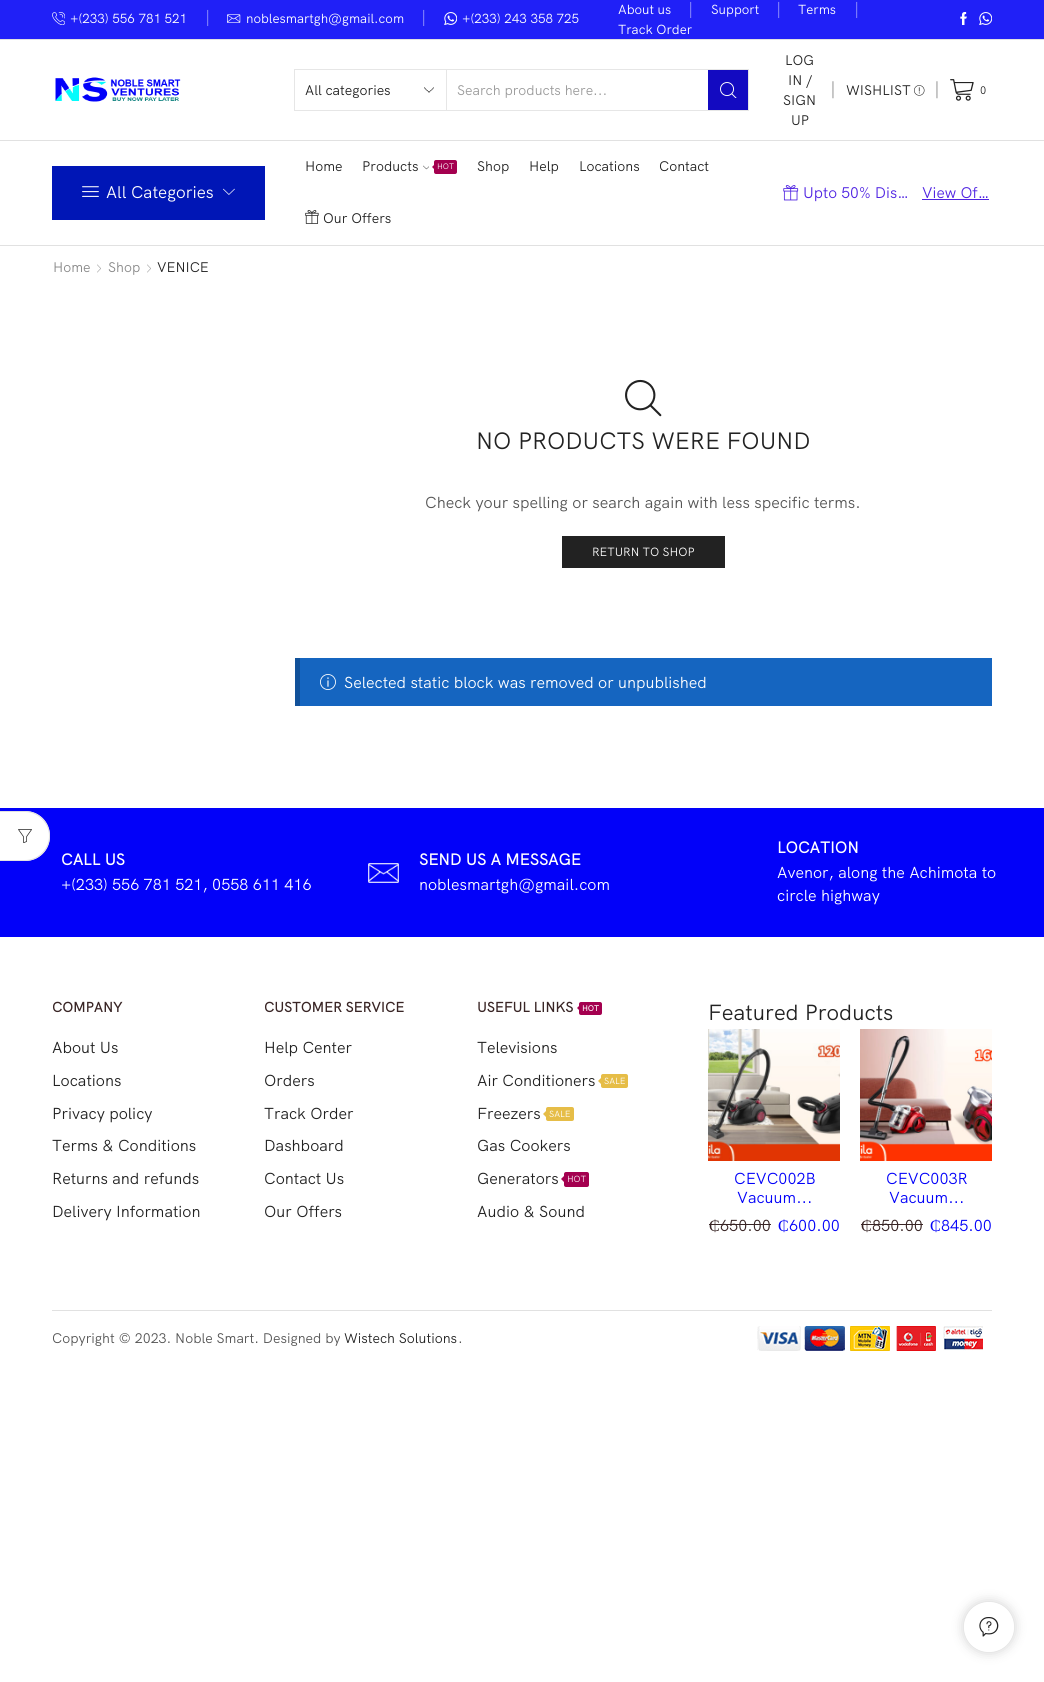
#include <cairo.h>
#include <math.h>
#include <stddef.h>

typedef struct { const char *family; double size; int italic, bold; unsigned color; } style_t;
static cairo_t *ctx;

static void ink(unsigned color) {
    cairo_set_source_rgb(ctx, (color >> 16) / 255.0, (color >> 8 & 255) / 255.0, (color & 255) / 255.0);
}

static void write(double x, double y, const char *s, const style_t *st) {
    cairo_select_font_face(ctx, st->family, st->italic ? CAIRO_FONT_SLANT_ITALIC : CAIRO_FONT_SLANT_NORMAL,
        st->bold ? CAIRO_FONT_WEIGHT_BOLD : CAIRO_FONT_WEIGHT_NORMAL);
    cairo_set_font_size(ctx, st->size);
    ink(st->color);
    cairo_move_to(ctx, x, y);
    cairo_show_text(ctx, s);
}

static void block(double x, double y, double w, double h, unsigned color) {
    ink(color);
    cairo_rectangle(ctx, x, y, w, h);
    cairo_fill(ctx);
}

static void round_path(double x, double y, double w, double h, double r) {
    cairo_new_sub_path(ctx);
    cairo_arc(ctx, x + w - r, y + h - r, r, 0, M_PI / 2);
    cairo_arc(ctx, x + r, y + h - r, r, M_PI / 2, M_PI);
    cairo_arc(ctx, x + r, y + r, r, M_PI, 1.5 * M_PI);
    cairo_arc(ctx, x + w - r, y + r, r, 1.5 * M_PI, 2 * M_PI);
    cairo_close_path(ctx);
}

static void blur_box(double x, double y, double w, double h, double r, double blur, double alpha) {
    cairo_push_group_with_content(ctx, CAIRO_CONTENT_ALPHA);
    cairo_set_operator(ctx, CAIRO_OPERATOR_SOURCE);
    for (int i = 15; i >= -15 && fmin(w, h) + blur * i / 3 > 0; i -= 2) {
        double e = blur * i / 6;
        cairo_set_source_rgba(ctx, 0, 0, 0, alpha * erfc((i - 1) / 8.5) / 2);
        round_path(x - e, y - e, w + 2 * e, h + 2 * e, fmax(0, fmin(r + e + blur * .6, fmin(w, h) / 2 + e)));
        cairo_fill(ctx);
    }
    cairo_pattern_t *soft = cairo_pop_group(ctx);
    cairo_mask(ctx, soft);
    cairo_pattern_destroy(soft);
}

static void paste(const char *path, double x, double y, double w, double h) {
    cairo_surface_t *image = cairo_image_surface_create_from_png(path);
    cairo_save(ctx);
    cairo_set_source_surface(ctx, image, x, y);
    cairo_rectangle(ctx, x, y, w, h);
    cairo_fill(ctx);
    cairo_restore(ctx);
    cairo_surface_destroy(image);
}

static const style_t s1 = {"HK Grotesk", 13.25, 0, 0, 0xffffff};
static const style_t s2 = {"Liberation Serif", 13.25, 0, 0, 0x9090fb};
static const style_t s3 = {"HK Grotesk", 14, 0, 0, 0x222222};
static const style_t s4 = {"HK Grotesk", 14, 0, 0, 0x9b9b9b};
static const style_t s5 = {"Liberation Serif", 14, 0, 0, 0x919191};
static const style_t s6 = {"HK Grotesk", 11, 0, 0, 0x222222};
static const style_t s7 = {"HK Grotesk", 17, 0, 0, 0xffffff};
static const style_t s8 = {"HK Grotesk", 8, 0, 0, 0xffffff};
static const style_t s9 = {"HK Grotesk", 15.5, 0, 0, 0x5024e2};
static const style_t s10 = {"HK Grotesk", 14, 0, 0, 0x888888};
static const style_t s11 = {"HK Grotesk", 23.75, 0, 0, 0x222222};
static const style_t s12 = {"HK Grotesk", 16, 0, 0, 0x555555};
static const style_t s13 = {"HK Grotesk", 12, 0, 0, 0xffffff};
static const style_t s14 = {"HK Grotesk", 16, 0, 0, 0xffffff};
static const style_t s15 = {"HK Grotesk", 16, 0, 1, 0xffffff};
static const style_t s16 = {"HK Grotesk", 14, 0, 1, 0x392525};
static const style_t s17 = {"HK Grotesk", 16, 0, 0, 0x222222};
static const style_t s18 = {"HK Grotesk", 8, 0, 1, 0xffffff};
static const style_t s19 = {"HK Grotesk", 9, 0, 0, 0xffffff};
static const style_t s20 = {"HK Grotesk", 22, 0, 0, 0x222222};
static const style_t s21 = {"HK Grotesk", 16, 0, 0, 0x0201f9};
static const style_t s22 = {"Liberation Serif", 16, 0, 0, 0x392525};
static const style_t s23 = {"HK Grotesk", 16, 0, 0, 0x392525};
static const style_t s24 = {"Liberation Serif", 16, 0, 0, 0x0201f9};
static const style_t s25 = {"HK Grotesk", 14, 0, 0, 0x555555};

int main(void) {
    cairo_surface_t *surface = cairo_image_surface_create(CAIRO_FORMAT_RGB24, 1044, 1682);
    ctx = cairo_create(surface);
    cairo_font_options_t *options = cairo_font_options_create();
    cairo_font_options_set_hint_metrics(options, CAIRO_HINT_METRICS_OFF);
    cairo_font_options_set_hint_style(options, CAIRO_HINT_STYLE_NONE);
    cairo_set_font_options(ctx, options);
    cairo_set_miter_limit(ctx, 4);
    ink(0xffffff);
    cairo_paint(ctx);
    block(0, 808, 1044, 129, 0x0201f9);
    ink(0xffffff);
    cairo_new_path(ctx);
    cairo_move_to(ctx, 0, 811);
    cairo_line_to(ctx, 25, 811);
    cairo_curve_to(ctx, 39, 811, 50, 822, 50, 836);
    cairo_curve_to(ctx, 50, 850, 39, 861, 25, 861);
    cairo_line_to(ctx, 0, 861);
    cairo_close_path(ctx);
    cairo_fill(ctx);
    ink(0xe1e1e1);
    cairo_set_fill_rule(ctx, CAIRO_FILL_RULE_EVEN_ODD);
    cairo_new_path(ctx);
    cairo_move_to(ctx, 0, 811);
    cairo_line_to(ctx, 25, 811);
    cairo_curve_to(ctx, 39, 811, 50, 822, 50, 836);
    cairo_curve_to(ctx, 50, 850, 39, 861, 25, 861);
    cairo_line_to(ctx, 0, 861);
    cairo_close_path(ctx);
    cairo_move_to(ctx, 0, 812);
    cairo_line_to(ctx, 25, 812);
    cairo_curve_to(ctx, 38, 812, 49, 823, 49, 836);
    cairo_curve_to(ctx, 49, 849, 38, 860, 25, 860);
    cairo_line_to(ctx, 0, 860);
    cairo_close_path(ctx);
    cairo_fill(ctx);
    paste("pic1.png", 18, 829, 14, 14);
    block(0, 0, 1044, 39, 0x2020f7);
    block(0, 39, 1044, 1, 0xe1e1e1);
    paste("pic2.png", 52, 12, 13, 13);
    write(70, 23, "+(233) 556 781 521", &s1);
    write(203, 22, "│", &s2);
    paste("pic3.png", 227, 14, 14, 9);
    write(246, 23, "noblesmartgh@gmail.com", &s1);
    write(419, 22, "│", &s2);
    paste("pic4.png", 444, 12, 13, 13);
    write(462, 23, "+(233) 243 358 725", &s1);
    write(618, 14, "About us", &s1);
    write(686, 14, "│", &s2);
    write(711, 14, "Support", &s1);
    write(774, 14, "│", &s2);
    write(798, 14, "Terms", &s1);
    write(852, 14, "│", &s2);
    write(618, 34, "Track Order", &s1);
    paste("pic5.png", 960, 12, 7, 13);
    paste("pic4.png", 979, 12, 13, 13);
    paste("pic6.png", 55, 77, 126, 25);
    cairo_rectangle(ctx, 294.5, 69.5, 454, 41);
    ink(0xe6e6e6);
    cairo_set_line_width(ctx, 1);
    cairo_stroke(ctx);
    paste("pic7.png", 424, 87, 10, 6);
    block(446, 70, 1, 40, 0xe6e6e6);
    write(305, 95, "All categories", &s3);
    write(457, 95, "Search products here...", &s4);
    block(708, 70, 40, 40, 0x130ac1);
    paste("pic8.png", 720, 82, 17, 16);
    write(785, 65, "LOG", &s3);
    write(788, 85, "IN /", &s3);
    write(783, 105, "SIGN", &s3);
    write(791, 125, "UP", &s3);
    write(828, 94, "│", &s5);
    write(846, 95, "WISHLIST", &s3);
    paste("pic9.png", 914, 85, 11, 11);
    write(932, 94, "│", &s5);
    paste("pic10.png", 950, 79, 24, 22);
    write(980, 94, "0", &s6);
    block(0, 140, 1044, 1, 0xe1e1e1);
    block(0, 245, 1044, 1, 0xe1e1e1);
    block(52, 166, 213, 54, 0x0016b6);
    paste("pic11.png", 82, 186, 17, 11);
    write(106, 198, "All Categories", &s7);
    paste("pic12.png", 223, 188, 12, 7);
    write(305, 171, "Home", &s3);
    write(362, 171, "Products", &s3);
    paste("pic13.png", 423, 165, 6, 5);
    ink(0xa4004f);
    round_path(434, 160, 23, 14, 2);
    cairo_fill(ctx);
    cairo_set_fill_rule(ctx, CAIRO_FILL_RULE_WINDING);
    cairo_new_path(ctx);
    cairo_move_to(ctx, 435, 164);
    cairo_line_to(ctx, 435, 170);
    cairo_line_to(ctx, 432, 167);
    cairo_close_path(ctx);
    cairo_fill(ctx);
    write(437, 169, "HOT", &s8);
    write(477, 171, "Shop", &s3);
    write(529, 171, "Help", &s3);
    write(579, 171, "Locations", &s3);
    write(659, 171, "Contact", &s3);
    paste("pic14.png", 305, 210, 14, 14);
    write(323, 223, "Our Offers", &s3);
    paste("pic15.png", 783, 185, 16, 16);
    write(803, 198, "Upto 50% Dis…", &s9);
    write(922, 198, "View Of…", &s9);
    block(922, 199, 67, 1, 0x5024e2);
    write(53, 272, "Home", &s10);
    paste("pic16.png", 97, 264, 4, 9);
    write(108, 272, "Shop", &s10);
    paste("pic16.png", 147, 264, 4, 9);
    write(157, 272, "VENICE", &s3);
    paste("pic17.png", 625, 379, 37, 38);
    write(476, 449, "NO PRODUCTS WERE FOUND", &s11);
    write(425, 508, "Check your spelling or search again with less specific terms.", &s12);
    block(562, 536, 163, 32, 0x222222);
    write(592, 556, "RETURN TO SHOP", &s13);
    block(300, 658, 692, 48, 0x1565c0);
    block(295, 658, 5, 48, 0x11519a);
    paste("pic18.png", 320, 674, 16, 16);
    write(344, 688, "Selected static block was removed or unpublished", &s14);
    write(61, 865, "CALL US", &s15);
    write(61, 890, "+(233) 556 781 521, 0558 611 416", &s14);
    paste("pic19.png", 368, 863, 31, 20);
    write(419, 865, "SEND US A MESSAGE", &s15);
    write(419, 890, "noblesmartgh@gmail.com", &s14);
    write(777, 853, "LOCATION", &s15);
    write(777, 878, "Avenor, along the Achimota to", &s14);
    write(777, 901, "circle highway", &s14);
    write(52, 1012, "COMPANY", &s16);
    write(52, 1053, "About Us", &s17);
    write(52, 1086, "Locations", &s17);
    write(52, 1119, "Privacy policy", &s17);
    write(52, 1151, "Terms & Conditions", &s17);
    write(52, 1184, "Returns and refunds", &s17);
    write(52, 1217, "Delivery Information", &s17);
    write(264, 1012, "CUSTOMER SERVICE", &s16);
    write(264, 1053, "Help Center", &s17);
    write(264, 1086, "Orders", &s17);
    write(264, 1119, "Track Order", &s17);
    write(264, 1151, "Dashboard", &s17);
    write(264, 1184, "Contact Us", &s17);
    write(264, 1217, "Our Offers", &s17);
    write(477, 1012, "USEFUL LINKS", &s16);
    ink(0xa4004f);
    round_path(579, 1002, 23, 13, 2);
    cairo_fill(ctx);
    cairo_new_path(ctx);
    cairo_move_to(ctx, 580, 1005);
    cairo_line_to(ctx, 580, 1011);
    cairo_line_to(ctx, 577, 1008);
    cairo_close_path(ctx);
    cairo_fill(ctx);
    write(582, 1011, "HOT", &s18);
    write(477, 1053, "Televisions", &s17);
    write(477, 1086, "Air Conditioners", &s17);
    ink(0xe6bd47);
    round_path(601, 1074, 27, 14, 2);
    cairo_fill(ctx);
    cairo_new_path(ctx);
    cairo_move_to(ctx, 601, 1078);
    cairo_line_to(ctx, 601, 1084);
    cairo_line_to(ctx, 598, 1081);
    cairo_close_path(ctx);
    cairo_fill(ctx);
    write(604, 1084, "SALE", &s19);
    write(477, 1119, "Freezers", &s17);
    ink(0xe6bd47);
    round_path(546, 1107, 28, 14, 2);
    cairo_fill(ctx);
    cairo_new_path(ctx);
    cairo_move_to(ctx, 546, 1111);
    cairo_line_to(ctx, 546, 1117);
    cairo_line_to(ctx, 543, 1114);
    cairo_close_path(ctx);
    cairo_fill(ctx);
    write(549, 1117, "SALE", &s19);
    write(477, 1151, "Gas Cookers", &s17);
    write(477, 1184, "Generators", &s17);
    ink(0xa4004f);
    round_path(564, 1172, 25, 15, 2);
    cairo_fill(ctx);
    cairo_new_path(ctx);
    cairo_move_to(ctx, 564, 1176);
    cairo_line_to(ctx, 564, 1182);
    cairo_line_to(ctx, 561, 1179);
    cairo_close_path(ctx);
    cairo_fill(ctx);
    write(567, 1182, "HOT", &s19);
    write(477, 1217, "Audio & Sound", &s17);
    write(708, 1020, "Featured Products", &s20);
    paste("pic20.png", 708, 1029, 132, 132);
    write(734, 1184, "CEVC002B", &s21);
    write(737, 1203, "Vacuum...", &s21);
    write(709, 1231, "₵", &s22);
    write(720, 1231, "650.00", &s23);
    block(709, 1224, 11, 1, 0x392525);
    block(720, 1224, 51, 1, 0x392525);
    write(778, 1231, "₵", &s24);
    write(789, 1231, "600.00", &s21);
    paste("pic21.png", 860, 1029, 132, 132);
    write(886, 1184, "CEVC003R", &s21);
    write(889, 1203, "Vacuum...", &s21);
    write(861, 1231, "₵", &s22);
    write(872, 1231, "850.00", &s23);
    block(861, 1224, 11, 1, 0x392525);
    block(872, 1224, 51, 1, 0x392525);
    write(930, 1231, "₵", &s24);
    write(941, 1231, "845.00", &s21);
    block(52, 1310, 940, 1, 0xe1e1e1);
    write(52, 1343, "Copyright © 2023. Noble Smart. Designed by", &s25);
    write(344, 1343, "Wistech Solutions", &s3);
    write(458, 1343, ".", &s25);
    paste("pic22.png", 757, 1326, 226, 25);
    cairo_save(ctx);
    cairo_set_fill_rule(ctx, CAIRO_FILL_RULE_EVEN_ODD);
    cairo_new_path(ctx);
    cairo_move_to(ctx, 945, 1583);
    cairo_line_to(ctx, 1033, 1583);
    cairo_line_to(ctx, 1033, 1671);
    cairo_line_to(ctx, 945, 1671);
    cairo_close_path(ctx);
    cairo_move_to(ctx, 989, 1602);
    cairo_curve_to(ctx, 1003, 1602, 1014, 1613, 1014, 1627);
    cairo_curve_to(ctx, 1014, 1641, 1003, 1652, 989, 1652);
    cairo_curve_to(ctx, 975, 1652, 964, 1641, 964, 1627);
    cairo_curve_to(ctx, 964, 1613, 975, 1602, 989, 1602);
    cairo_close_path(ctx);
    cairo_clip(ctx);
    ink(0x000000);
    blur_box(964, 1602, 50, 50, 25, 6, 0.2);
    cairo_restore(ctx);
    paste("pic23.png", 979, 1617, 20, 20);
    cairo_surface_write_to_png(surface, "screenshot.png");
    cairo_font_options_destroy(options);
    cairo_destroy(ctx);
    cairo_surface_destroy(surface);
    return 0;
}
